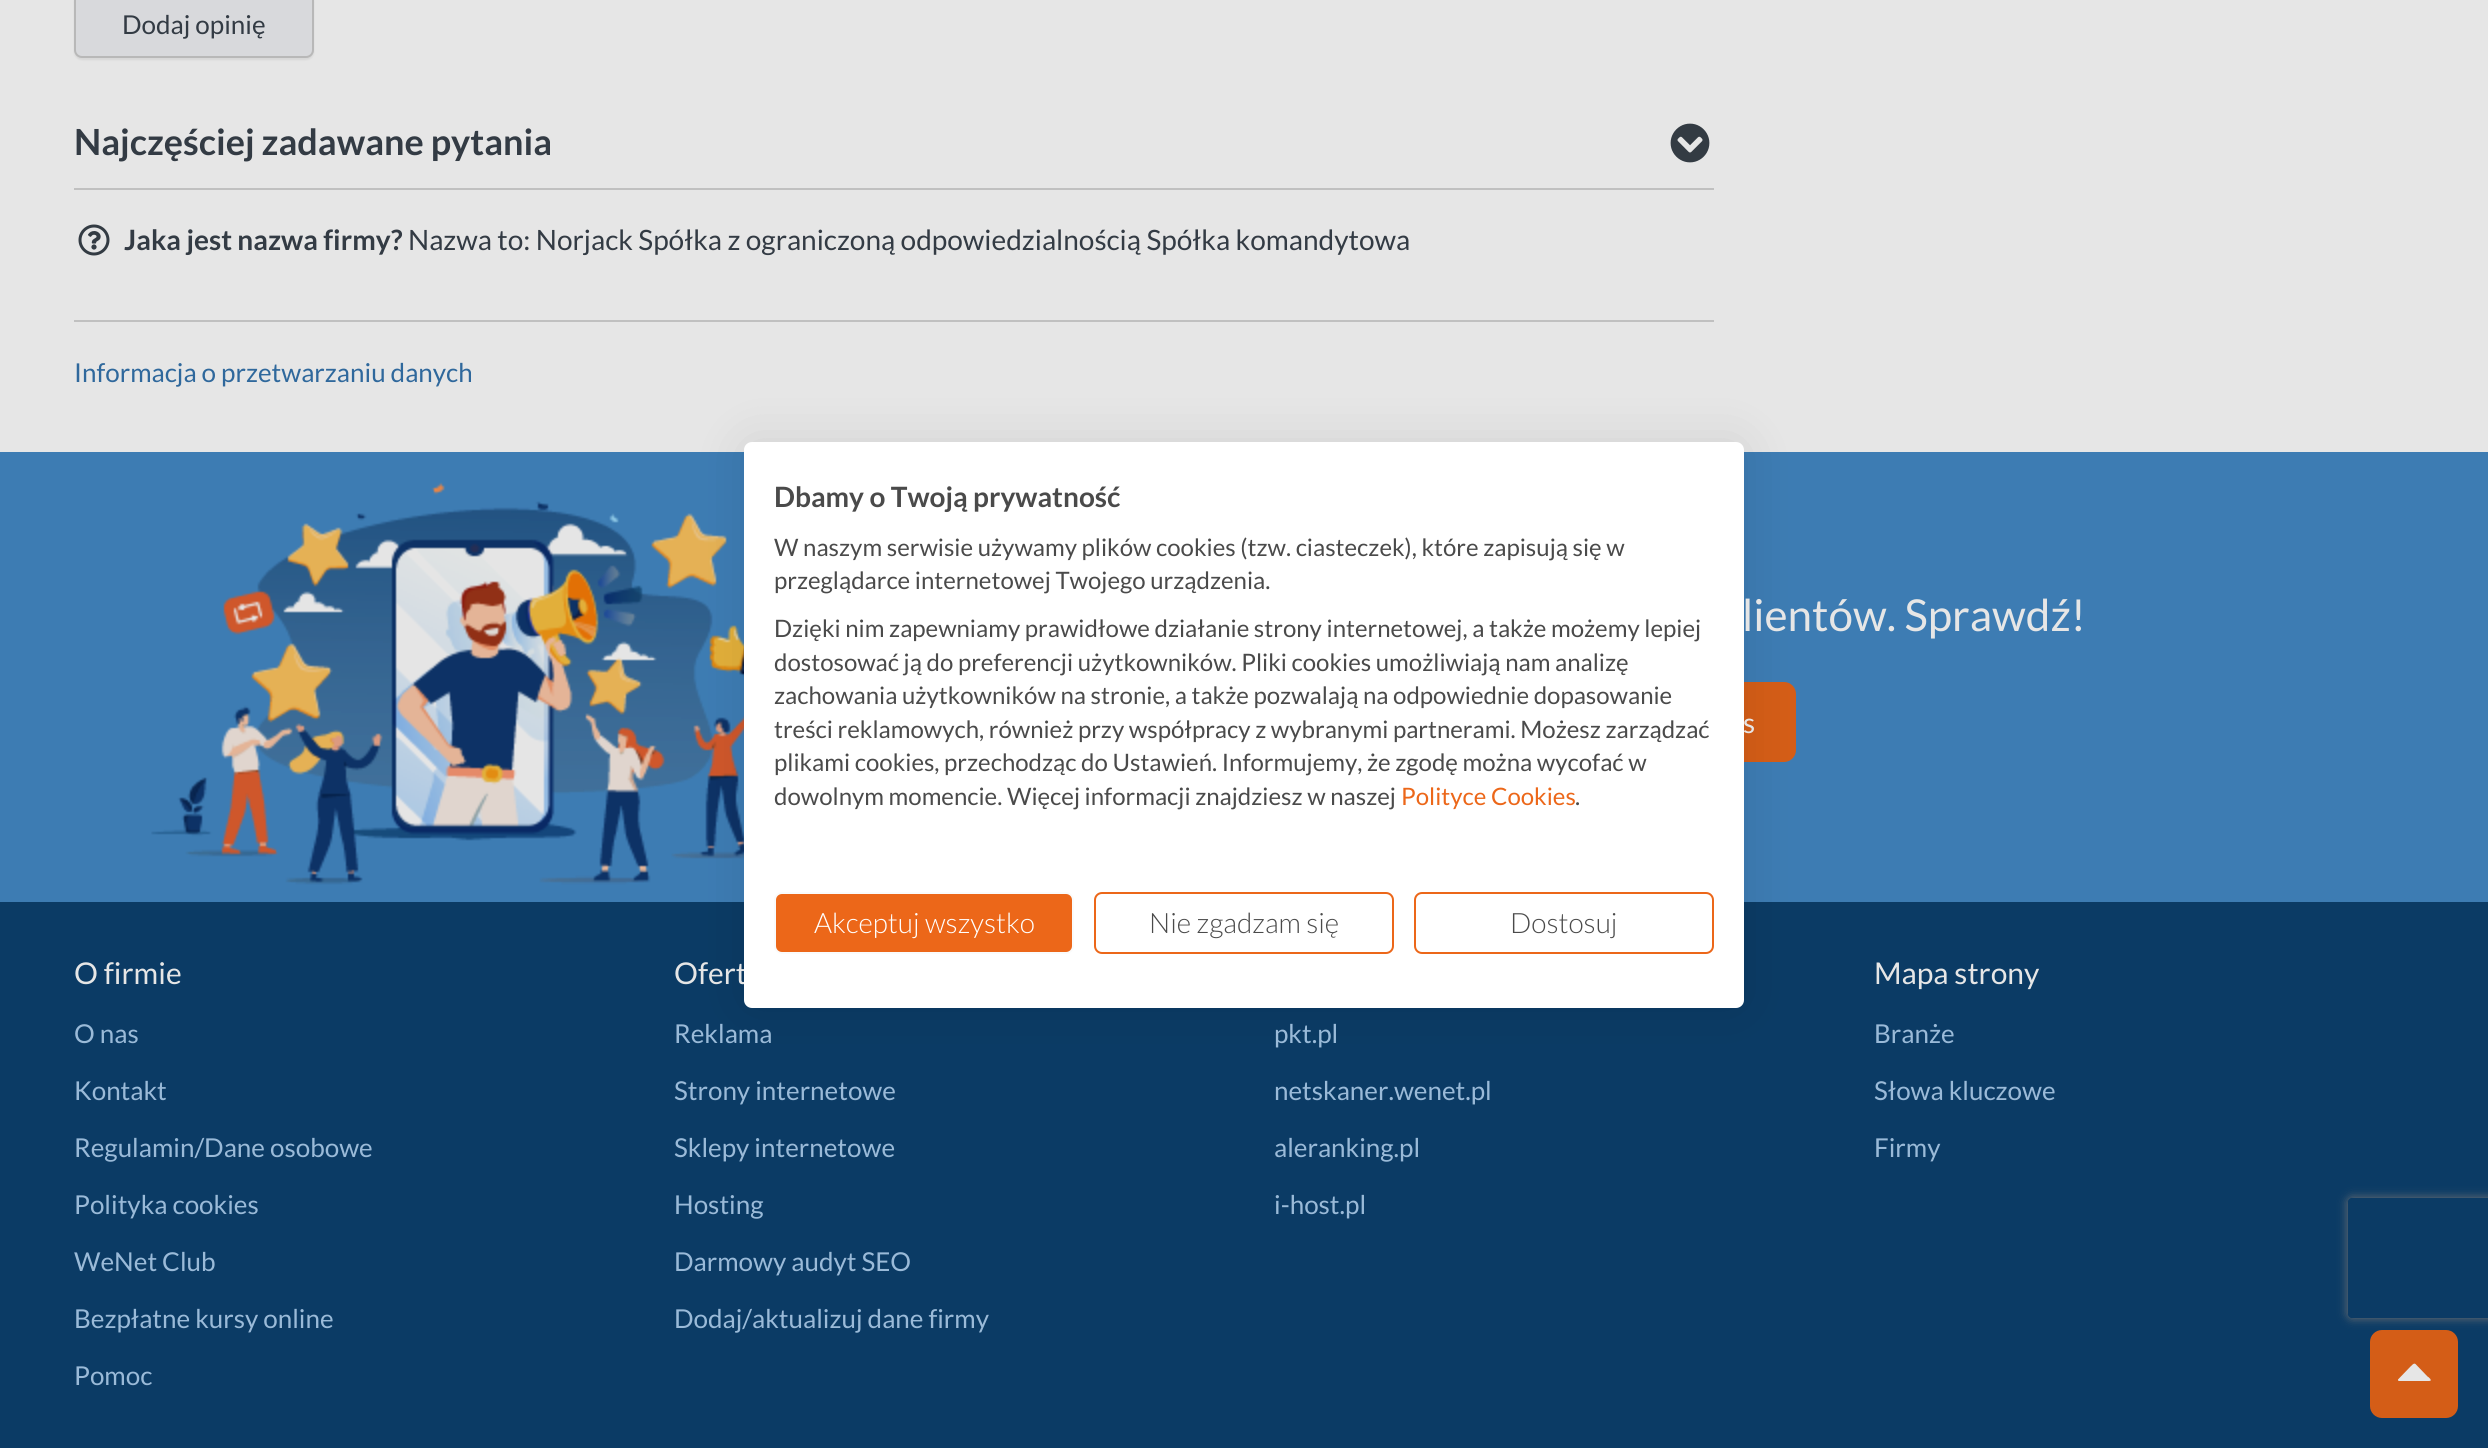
#include <cairo.h>
#include <math.h>
#include <stddef.h>

typedef struct { const char *family; double size; int italic, bold; unsigned color; } style_t;
static cairo_t *ctx;

static void ink(unsigned color) {
    cairo_set_source_rgb(ctx, (color >> 16) / 255.0, (color >> 8 & 255) / 255.0, (color & 255) / 255.0);
}

static void write(double x, double y, const char *s, const style_t *st) {
    cairo_select_font_face(ctx, st->family, st->italic ? CAIRO_FONT_SLANT_ITALIC : CAIRO_FONT_SLANT_NORMAL,
        st->bold ? CAIRO_FONT_WEIGHT_BOLD : CAIRO_FONT_WEIGHT_NORMAL);
    cairo_set_font_size(ctx, st->size);
    ink(st->color);
    cairo_move_to(ctx, x, y);
    cairo_show_text(ctx, s);
}

static void block(double x, double y, double w, double h, unsigned color) {
    ink(color);
    cairo_rectangle(ctx, x, y, w, h);
    cairo_fill(ctx);
}

static void round_path(double x, double y, double w, double h, double r) {
    cairo_new_sub_path(ctx);
    cairo_arc(ctx, x + w - r, y + h - r, r, 0, M_PI / 2);
    cairo_arc(ctx, x + r, y + h - r, r, M_PI / 2, M_PI);
    cairo_arc(ctx, x + r, y + r, r, M_PI, 1.5 * M_PI);
    cairo_arc(ctx, x + w - r, y + r, r, 1.5 * M_PI, 2 * M_PI);
    cairo_close_path(ctx);
}

static void blur_box(double x, double y, double w, double h, double r, double blur, double alpha) {
    cairo_push_group_with_content(ctx, CAIRO_CONTENT_ALPHA);
    cairo_set_operator(ctx, CAIRO_OPERATOR_SOURCE);
    for (int i = 15; i >= -15 && fmin(w, h) + blur * i / 3 > 0; i -= 2) {
        double e = blur * i / 6;
        cairo_set_source_rgba(ctx, 0, 0, 0, alpha * erfc((i - 1) / 8.5) / 2);
        round_path(x - e, y - e, w + 2 * e, h + 2 * e, fmax(0, fmin(r + e + blur * .6, fmin(w, h) / 2 + e)));
        cairo_fill(ctx);
    }
    cairo_pattern_t *soft = cairo_pop_group(ctx);
    cairo_mask(ctx, soft);
    cairo_pattern_destroy(soft);
}

static void paste(const char *path, double x, double y, double w, double h) {
    cairo_surface_t *image = cairo_image_surface_create_from_png(path);
    cairo_save(ctx);
    cairo_set_source_surface(ctx, image, x, y);
    cairo_rectangle(ctx, x, y, w, h);
    cairo_fill(ctx);
    cairo_restore(ctx);
    cairo_surface_destroy(image);
}

static const style_t s1 = {"Lato", 26, 0, 0, 0x333b44};
static const style_t s2 = {"Lato", 36, 0, 1, 0x333b44};
static const style_t s3 = {"Lato", 28, 0, 1, 0x333b44};
static const style_t s4 = {"Lato", 28, 0, 0, 0x333b44};
static const style_t s5 = {"Lato", 26, 0, 0, 0x2f689c};
static const style_t s6 = {"Lato", 28, 0, 0, 0xe6e6e6};
static const style_t s7 = {"Lato", 30, 0, 0, 0xe6e6e6};
static const style_t s8 = {"Lato", 28, 0, 1, 0x4a4a4a};
static const style_t s9 = {"Lato", 24, 0, 0, 0x4a4a4a};
static const style_t s10 = {"Lato", 24, 0, 0, 0xec6719};
static const style_t s11 = {"Lato Light", 28, 0, 0, 0xffffff};
static const style_t s12 = {"Lato Light", 28, 0, 0, 0x4a4a4a};
static const style_t s13 = {"Lato", 44, 0, 0, 0xe6e6e6};
static const style_t s14 = {"Lato", 26, 0, 0, 0x9abad8};

int main(void) {
    cairo_surface_t *surface = cairo_image_surface_create(CAIRO_FORMAT_RGB24, 2488, 1448);
    ctx = cairo_create(surface);
    cairo_font_options_t *options = cairo_font_options_create();
    cairo_font_options_set_hint_metrics(options, CAIRO_HINT_METRICS_OFF);
    cairo_font_options_set_hint_style(options, CAIRO_HINT_STYLE_NONE);
    cairo_set_font_options(ctx, options);
    cairo_set_miter_limit(ctx, 4);
    ink(0xe6e6e6);
    cairo_paint(ctx);
    ink(0x000000);
    blur_box(74, -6, 240, 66, 8, 1, 0.07);
    ink(0xd8d9dc);
    round_path(75, -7, 238, 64, 7);
    cairo_fill_preserve(ctx);
    ink(0xb8b8b8);
    cairo_stroke(ctx);
    write(122, 34, "Dodaj opinię", &s1);
    block(74, 188, 1640, 2, 0xc0c0c0);
    write(74, 155, "Najczęściej zadawane pytania", &s2);
    paste("pic1.png", 1670, 123, 40, 40);
    paste("pic2.png", 78, 224, 32, 32);
    write(124, 250, "Jaka jest nazwa firmy?", &s3);
    write(408, 250, "Nazwa to: Norjack Spółka z ograniczoną odpowiedzialnością Spółka komandytowa", &s4);
    block(74, 320, 1640, 2, 0xc0c0c0);
    write(74, 382, "Informacja o przetwarzaniu danych", &s5);
    block(0, 452, 2488, 450, 0x3d7cb3);
    paste("pic3.png", 151, 482, 593, 403);
    ink(0xd45d17);
    round_path(1492, 682, 304, 80, 12);
    cairo_fill(ctx);
    block(0, 902, 2488, 546, 0x0b3b65);
    ink(0x000000);
    blur_box(744, 442, 1000, 566, 8, 24, 0.1);
    write(1743, 733, "s", &s6);
    write(674, 984, "Ofert", &s7);
    ink(0xffffff);
    round_path(744, 442, 1000, 566, 8);
    cairo_fill(ctx);
    write(774, 507, "Dbamy o Twoją prywatność", &s8);
    write(774, 556, "W naszym serwisie używamy plików cookies (tzw. ciasteczek), które zapisują się w", &s9);
    write(774, 589, "przeglądarce internetowej Twojego urządzenia.", &s9);
    write(774, 637, "Dzięki nim zapewniamy prawidłowe działanie strony internetowej, a także możemy lepiej", &s9);
    write(774, 671, "dostosować ją do preferencji użytkowników. Pliki cookies umożliwiają nam analizę", &s9);
    write(774, 704, "zachowania użytkowników na stronie, a także pozwalają na odpowiednie dopasowanie", &s9);
    write(774, 738, "treści reklamowych, również przy współpracy z wybranymi partnerami. Możesz zarządzać", &s9);
    write(774, 771, "plikami cookies, przechodząc do Ustawień. Informujemy, że zgodę można wycofać w", &s9);
    write(774, 805, "dowolnym momencie. Więcej informacji znajdziesz w naszej", &s9);
    write(1401, 805, "Polityce Cookies", &s10);
    write(1575, 805, ".", &s9);
    ink(0xec6719);
    round_path(775, 893, 298, 60, 7);
    cairo_fill_preserve(ctx);
    ink(0xfafbfb);
    cairo_stroke(ctx);
    write(814, 933, "Akceptuj wszystko", &s11);
    round_path(1095, 893, 298, 60, 7);
    ink(0xec6719);
    cairo_stroke(ctx);
    write(1149, 933, "Nie zgadzam się", &s12);
    round_path(1415, 893, 298, 60, 7);
    ink(0xec6719);
    cairo_stroke(ctx);
    write(1510, 933, "Dostosuj", &s12);
    write(1742, 631, "lientów. Sprawdź!", &s13);
    write(74, 984, "O firmie", &s7);
    write(74, 1043, "O nas", &s14);
    write(74, 1100, "Kontakt", &s14);
    write(74, 1157, "Regulamin/Dane osobowe", &s14);
    write(74, 1214, "Polityka cookies", &s14);
    write(74, 1271, "WeNet Club", &s14);
    write(74, 1328, "Bezpłatne kursy online", &s14);
    write(74, 1385, "Pomoc", &s14);
    write(674, 1043, "Reklama", &s14);
    write(674, 1100, "Strony internetowe", &s14);
    write(674, 1157, "Sklepy internetowe", &s14);
    write(674, 1214, "Hosting", &s14);
    write(674, 1271, "Darmowy audyt SEO", &s14);
    write(674, 1328, "Dodaj/aktualizuj dane firmy", &s14);
    write(1274, 1043, "pkt.pl", &s14);
    write(1274, 1100, "netskaner.wenet.pl", &s14);
    write(1274, 1157, "aleranking.pl", &s14);
    write(1274, 1214, "i-host.pl", &s14);
    write(1874, 984, "Mapa strony", &s7);
    write(1874, 1043, "Branże", &s14);
    write(1874, 1100, "Słowa kluczowe", &s14);
    write(1874, 1157, "Firmy", &s14);
    cairo_save(ctx);
    cairo_set_fill_rule(ctx, CAIRO_FILL_RULE_EVEN_ODD);
    cairo_new_path(ctx);
    cairo_move_to(ctx, 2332, 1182);
    cairo_line_to(ctx, 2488, 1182);
    cairo_line_to(ctx, 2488, 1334);
    cairo_line_to(ctx, 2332, 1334);
    cairo_close_path(ctx);
    cairo_move_to(ctx, 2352, 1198);
    cairo_line_to(ctx, 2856, 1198);
    cairo_curve_to(ctx, 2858, 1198, 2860, 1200, 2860, 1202);
    cairo_line_to(ctx, 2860, 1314);
    cairo_curve_to(ctx, 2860, 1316, 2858, 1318, 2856, 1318);
    cairo_line_to(ctx, 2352, 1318);
    cairo_curve_to(ctx, 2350, 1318, 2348, 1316, 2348, 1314);
    cairo_line_to(ctx, 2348, 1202);
    cairo_curve_to(ctx, 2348, 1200, 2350, 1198, 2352, 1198);
    cairo_close_path(ctx);
    cairo_clip(ctx);
    ink(0x737373);
    blur_box(2348, 1198, 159, 120, 4, 5, 1);
    cairo_restore(ctx);
    ink(0xd45d17);
    round_path(2370, 1330, 88, 88, 12);
    cairo_fill(ctx);
    ink(0xe6e6e6);
    cairo_new_path(ctx);
    cairo_move_to(ctx, 2415.5, 1364);
    cairo_line_to(ctx, 2427.5, 1376.5);
    cairo_curve_to(ctx, 2428, 1376.5, 2433.5, 1381, 2429, 1381);
    cairo_line_to(ctx, 2399, 1381);
    cairo_line_to(ctx, 2398, 1380.5);
    cairo_line_to(ctx, 2398, 1379.5);
    cairo_line_to(ctx, 2410.5, 1366.5);
    cairo_curve_to(ctx, 2411.5, 1366, 2413.5, 1362.5, 2415.5, 1364);
    cairo_close_path(ctx);
    cairo_fill(ctx);
    cairo_surface_write_to_png(surface, "screenshot.png");
    cairo_font_options_destroy(options);
    cairo_destroy(ctx);
    cairo_surface_destroy(surface);
    return 0;
}
